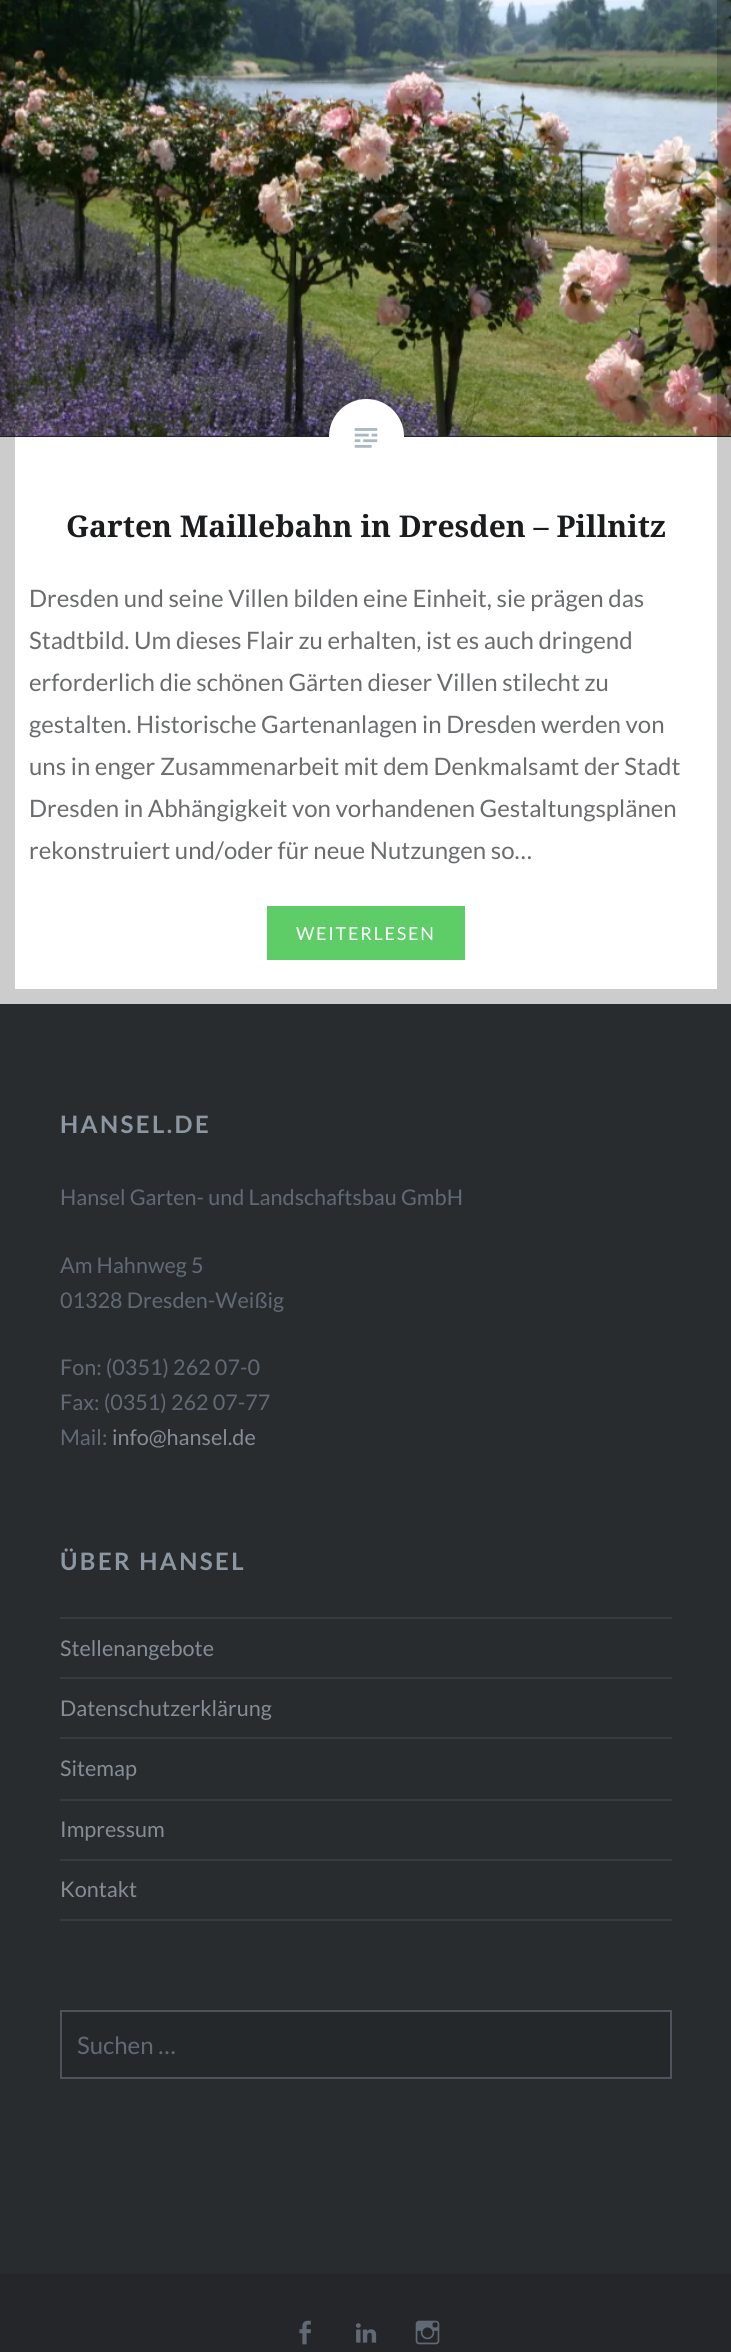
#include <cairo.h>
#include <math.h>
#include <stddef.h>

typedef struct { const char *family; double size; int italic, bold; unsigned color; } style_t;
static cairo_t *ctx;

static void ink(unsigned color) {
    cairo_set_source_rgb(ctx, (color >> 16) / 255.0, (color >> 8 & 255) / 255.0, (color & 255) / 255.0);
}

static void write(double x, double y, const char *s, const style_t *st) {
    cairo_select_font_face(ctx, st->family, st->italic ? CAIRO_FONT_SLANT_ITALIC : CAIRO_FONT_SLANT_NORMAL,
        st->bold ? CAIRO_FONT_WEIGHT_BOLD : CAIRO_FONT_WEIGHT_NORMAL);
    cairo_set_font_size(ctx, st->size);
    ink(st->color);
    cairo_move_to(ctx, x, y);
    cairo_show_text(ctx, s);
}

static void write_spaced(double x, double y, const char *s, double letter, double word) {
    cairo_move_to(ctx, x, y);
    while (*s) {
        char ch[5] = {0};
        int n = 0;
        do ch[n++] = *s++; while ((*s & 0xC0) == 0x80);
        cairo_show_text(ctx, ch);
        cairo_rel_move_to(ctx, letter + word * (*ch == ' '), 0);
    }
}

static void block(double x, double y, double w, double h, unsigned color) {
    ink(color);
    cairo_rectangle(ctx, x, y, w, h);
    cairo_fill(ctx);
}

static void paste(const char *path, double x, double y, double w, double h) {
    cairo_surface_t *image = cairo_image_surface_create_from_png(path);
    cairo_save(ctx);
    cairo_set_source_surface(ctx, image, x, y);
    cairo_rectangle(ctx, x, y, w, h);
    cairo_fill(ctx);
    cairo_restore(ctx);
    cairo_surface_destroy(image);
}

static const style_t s1 = {"Noto Serif", 30, 0, 1, 0x1a1c1e};
static const style_t s2 = {"Lato", 24, 0, 0, 0x6a6c6e};
static const style_t s3 = {"Lato", 21.6, 0, 0, 0x616a74};
static const style_t s4 = {"Lato", 21.6, 0, 0, 0x858d95};
static const style_t s5 = {"Lato", 24, 0, 0, 0x616a74};

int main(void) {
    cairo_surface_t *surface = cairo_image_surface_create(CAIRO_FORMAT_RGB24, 731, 2352);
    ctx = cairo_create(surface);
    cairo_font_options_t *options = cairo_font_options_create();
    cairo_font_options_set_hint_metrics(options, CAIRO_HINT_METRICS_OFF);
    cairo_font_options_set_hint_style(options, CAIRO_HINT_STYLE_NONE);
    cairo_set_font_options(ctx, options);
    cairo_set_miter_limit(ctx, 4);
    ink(0xffffff);
    cairo_paint(ctx);
    block(0, 434, 731, 3, 0x242629);
    paste("pic1.png", 0, 0, 731, 436);
    ink(0xffffff);
    cairo_arc(ctx, 366.5, 436.5, 37.5, 0, 2 * M_PI);
    cairo_fill(ctx);
    cairo_rectangle(ctx, 7.5, -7.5, 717, 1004);
    cairo_set_source_rgba(ctx, 0, 0, 0, 0.2);
    cairo_set_line_width(ctx, 15);
    cairo_stroke(ctx);
    paste("pic2.png", 354, 428, 24, 20);
    write(66, 537, "Garten Maillebahn in Dresden – Pillnitz", &s1);
    write(29, 607, "Dresden und seine Villen bilden eine Einheit, sie prägen das", &s2);
    write(29, 649, "Stadtbild. Um dieses Flair zu erhalten, ist es auch dringend", &s2);
    write(29, 691, "erforderlich die schönen Gärten dieser Villen stilecht zu", &s2);
    write(29, 733, "gestalten. Historische Gartenanlagen in Dresden werden von", &s2);
    write(29, 775, "uns in enger Zusammenarbeit mit dem Denkmalsamt der Stadt", &s2);
    write(29, 817, "Dresden in Abhängigkeit von vorhandenen Gestaltungsplänen", &s2);
    write(29, 859, "rekonstruiert und/oder für neue Nutzungen so…", &s2);
    block(267, 906, 198, 54, 0x5ecc67);
    cairo_set_font_size(ctx, 18);
    ink(0xffffff);
    write_spaced(296, 940, "WEITERLESEN", 1.75, 0);
    block(0, 1004, 731, 1270, 0x292c2f);
    cairo_select_font_face(ctx, "Lato", CAIRO_FONT_SLANT_NORMAL, CAIRO_FONT_WEIGHT_BOLD);
    cairo_set_font_size(ctx, 24);
    ink(0x8c97a2);
    write_spaced(60, 1133, "HANSEL.DE", 2.4, 0);
    write(60, 1205, "Hansel Garten- und Landschaftsbau GmbH", &s3);
    write(60, 1273, "Am Hahnweg 5", &s3);
    write(60, 1308, "01328 Dresden-Weißig", &s3);
    write(60, 1375, "Fon: (0351) 262 07-0", &s3);
    write(60, 1410, "Fax: (0351) 262 07-77", &s3);
    write(60, 1445, "Mail:", &s3);
    write(112, 1445, "info@hansel.de", &s4);
    cairo_select_font_face(ctx, "Lato", CAIRO_FONT_SLANT_NORMAL, CAIRO_FONT_WEIGHT_BOLD);
    cairo_set_font_size(ctx, 24);
    ink(0x8c97a2);
    write_spaced(60, 1570, "ÜBER HANSEL", 2.4, 0);
    block(60, 1617, 612, 2, 0x363b40);
    block(60, 1677, 612, 2, 0x363b40);
    write(60, 1656, "Stellenangebote", &s4);
    block(60, 1737, 612, 2, 0x363b40);
    write(60, 1716, "Datenschutzerklärung", &s4);
    block(60, 1799, 612, 2, 0x363b40);
    write(60, 1776, "Sitemap", &s4);
    block(60, 1859, 612, 2, 0x363b40);
    write(60, 1837, "Impressum", &s4);
    block(60, 1919, 612, 2, 0x363b40);
    write(60, 1897, "Kontakt", &s4);
    ink(0x25282a);
    cairo_rectangle(ctx, 61, 2011, 610, 67);
    cairo_fill_preserve(ctx);
    ink(0x4d545b);
    cairo_set_line_width(ctx, 2);
    cairo_stroke(ctx);
    write(77, 2054, "Suchen …", &s5);
    block(0, 2274, 731, 78, 0x242629);
    paste("pic3.png", 299, 2320, 12, 25);
    paste("pic4.png", 355, 2323, 22, 20);
    paste("pic5.png", 415, 2320, 25, 25);
    cairo_surface_write_to_png(surface, "screenshot.png");
    cairo_font_options_destroy(options);
    cairo_destroy(ctx);
    cairo_surface_destroy(surface);
    return 0;
}
